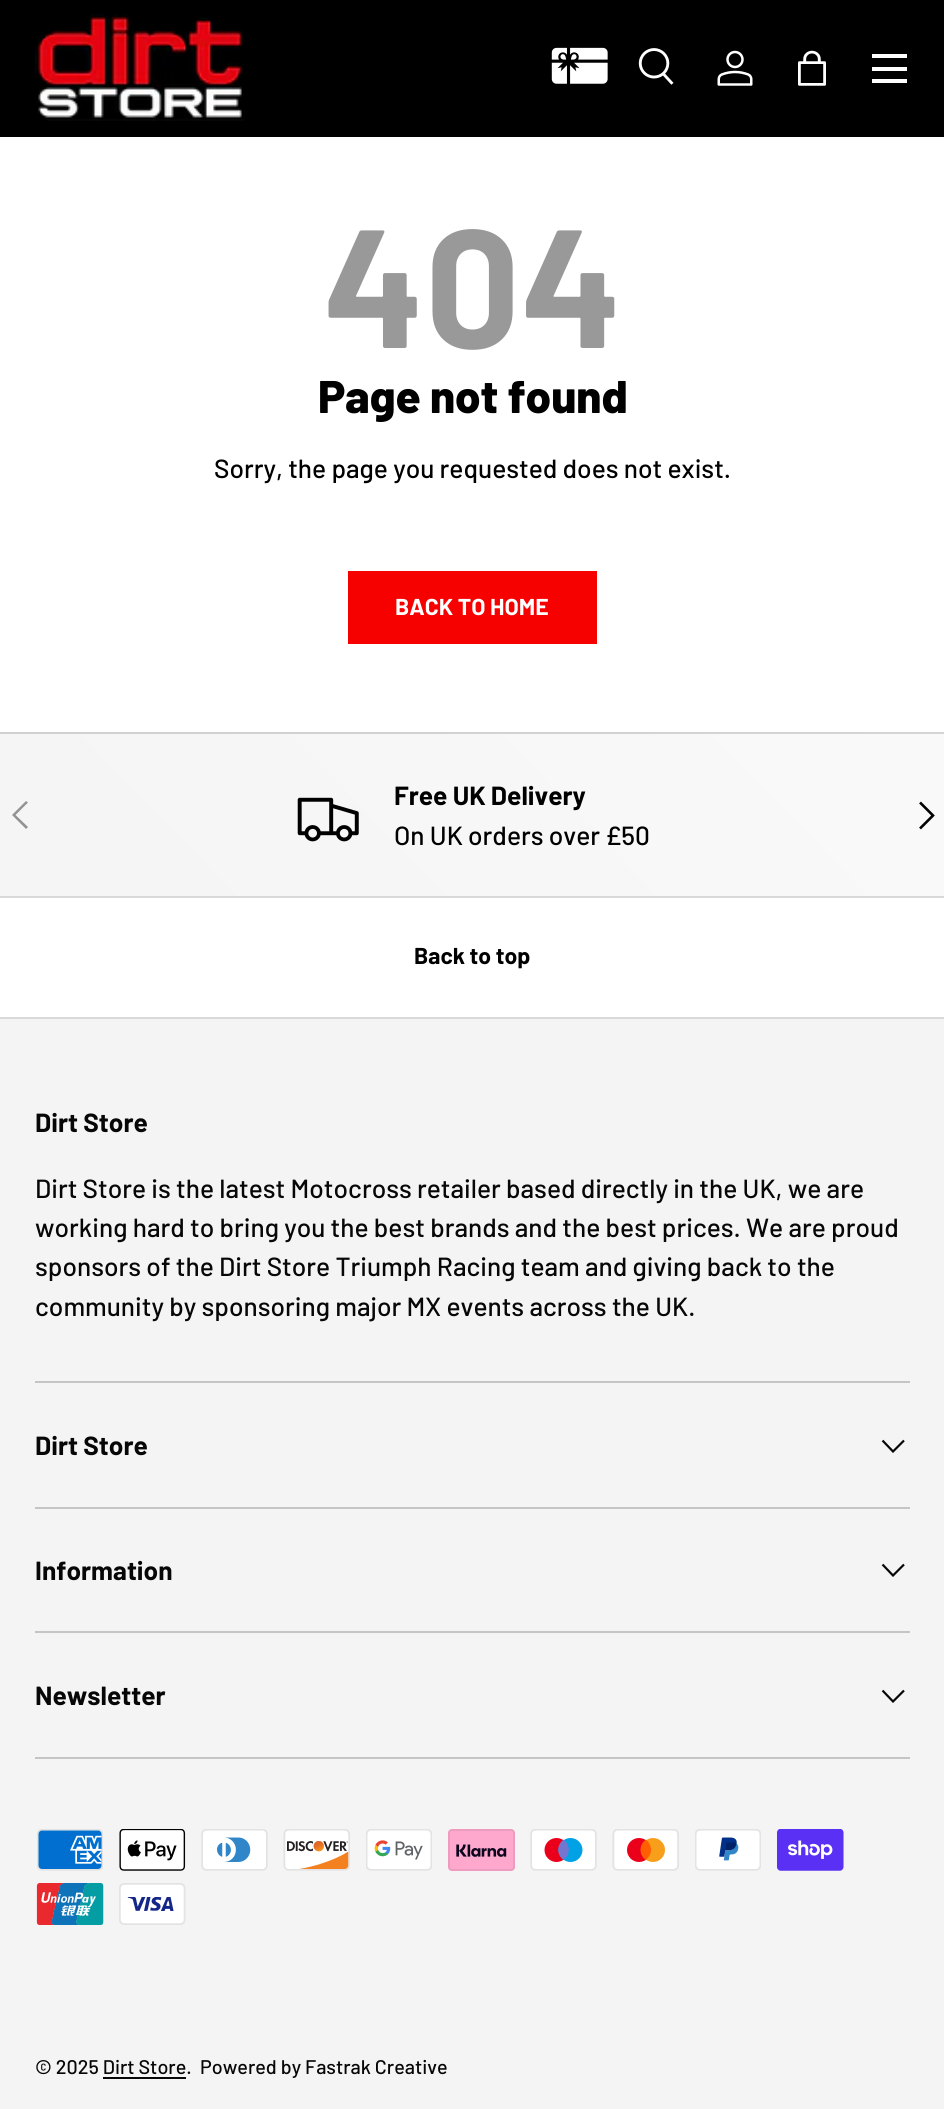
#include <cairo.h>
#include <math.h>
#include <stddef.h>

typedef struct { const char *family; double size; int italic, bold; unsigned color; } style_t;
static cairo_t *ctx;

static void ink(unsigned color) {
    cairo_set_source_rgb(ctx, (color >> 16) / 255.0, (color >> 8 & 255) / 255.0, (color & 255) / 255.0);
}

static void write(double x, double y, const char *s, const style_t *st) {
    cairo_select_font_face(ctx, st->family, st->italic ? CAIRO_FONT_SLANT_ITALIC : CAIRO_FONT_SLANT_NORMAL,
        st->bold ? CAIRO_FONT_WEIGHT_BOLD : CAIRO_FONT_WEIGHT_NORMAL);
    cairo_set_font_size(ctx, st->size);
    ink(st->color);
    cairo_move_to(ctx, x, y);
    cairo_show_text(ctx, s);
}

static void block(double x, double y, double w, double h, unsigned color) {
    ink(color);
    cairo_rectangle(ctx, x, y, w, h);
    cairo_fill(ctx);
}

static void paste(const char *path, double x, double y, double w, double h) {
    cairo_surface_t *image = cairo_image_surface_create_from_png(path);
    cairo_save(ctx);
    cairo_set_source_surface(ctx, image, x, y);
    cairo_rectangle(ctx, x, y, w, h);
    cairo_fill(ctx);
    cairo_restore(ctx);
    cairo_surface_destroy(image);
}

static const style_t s1 = {"Barlow", 168, 0, 1, 0x999999};
static const style_t s2 = {"Barlow ExtraBold", 45.75, 0, 0, 0x000000};
static const style_t s3 = {"Barlow Medium", 26.25, 0, 0, 0x000000};
static const style_t s4 = {"Barlow", 23, 0, 1, 0xffffff};
static const style_t s5 = {"Barlow", 26.25, 0, 1, 0x000000};
static const style_t s6 = {"Barlow", 23, 0, 1, 0x000000};
static const style_t s7 = {"Barlow", 26.25, 0, 1, 0x070707};
static const style_t s8 = {"Barlow Medium", 26.25, 0, 0, 0x070707};
static const style_t s9 = {"Barlow Medium", 19.75, 0, 0, 0x070707};

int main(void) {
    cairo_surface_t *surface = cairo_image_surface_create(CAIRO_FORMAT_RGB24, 944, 2109);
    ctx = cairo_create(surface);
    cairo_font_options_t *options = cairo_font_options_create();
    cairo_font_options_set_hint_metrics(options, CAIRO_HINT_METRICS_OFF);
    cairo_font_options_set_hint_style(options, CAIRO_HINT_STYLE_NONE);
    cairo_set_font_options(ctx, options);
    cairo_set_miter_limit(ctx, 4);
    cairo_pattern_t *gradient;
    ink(0xffffff);
    cairo_paint(ctx);
    block(0, 0, 944, 137, 0x000000);
    paste("pic1.png", 35, 14, 210, 107);
    paste("pic2.png", 551, 47, 57, 37);
    paste("pic3.png", 638, 48, 36, 37);
    paste("pic4.png", 717, 50, 36, 36);
    paste("pic5.png", 798, 50, 28, 36);
    block(872, 54, 35, 4, 0xffffff);
    block(872, 79, 35, 4, 0xffffff);
    block(872, 67, 35, 4, 0xffffff);
    write(323, 348, "404", &s1);
    write(318, 413, "Page not found", &s2);
    write(214, 478, "Sorry, the page you requested does not exist.", &s3);
    gradient = cairo_pattern_create_linear(-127, 519, 582, 696);
    cairo_pattern_add_color_stop_rgba(gradient, 0.6, 0.973, 0.208, 0.208, 1);
    cairo_pattern_add_color_stop_rgba(gradient, 0.6, 0.969, 0, 0, 1);
    cairo_pattern_add_color_stop_rgba(gradient, 1, 0.969, 0, 0, 1);
    cairo_set_source(ctx, gradient);
    cairo_pattern_destroy(gradient);
    cairo_rectangle(ctx, 350, 573, 245, 69);
    cairo_fill(ctx);
    cairo_rectangle(ctx, 349, 572, 247, 71);
    ink(0xf70000);
    cairo_stroke(ctx);
    write(395, 615, "BACK TO HOME", &s4);
    gradient = cairo_pattern_create_linear(187, 927, 758, 377);
    cairo_pattern_add_color_stop_rgba(gradient, 0.13, 0.816, 0.816, 0.816, 1);
    cairo_pattern_add_color_stop_rgba(gradient, 0.86, 0.831, 0.831, 0.831, 1);
    cairo_set_source(ctx, gradient);
    cairo_pattern_destroy(gradient);
    cairo_rectangle(ctx, 0, 732, 944, 1);
    cairo_fill(ctx);
    gradient = cairo_pattern_create_linear(187, 1090, 758, 539);
    cairo_pattern_add_color_stop_rgba(gradient, 0.13, 0.961, 0.961, 0.961, 1);
    cairo_pattern_add_color_stop_rgba(gradient, 0.86, 0.976, 0.976, 0.976, 1);
    cairo_set_source(ctx, gradient);
    cairo_pattern_destroy(gradient);
    cairo_rectangle(ctx, 0, 734, 944, 162);
    cairo_fill(ctx);
    gradient = cairo_pattern_create_linear(187, 1090, 758, 539);
    cairo_pattern_add_color_stop_rgba(gradient, 0.13, 0.816, 0.816, 0.816, 1);
    cairo_pattern_add_color_stop_rgba(gradient, 0.86, 0.831, 0.831, 0.831, 1);
    cairo_set_source(ctx, gradient);
    cairo_pattern_destroy(gradient);
    cairo_rectangle(ctx, 0, 733, 944, 1);
    cairo_fill(ctx);
    paste("pic6.png", 297, 797, 62, 45);
    write(394, 805, "Free UK Delivery", &s5);
    write(394, 845, "On UK orders over £50", &s3);
    ink(0x939393);
    cairo_new_path(ctx);
    cairo_move_to(ctx, 12, 815);
    cairo_line_to(ctx, 26, 801);
    cairo_line_to(ctx, 28, 802.5);
    cairo_line_to(ctx, 15.5, 815);
    cairo_line_to(ctx, 28, 827);
    cairo_line_to(ctx, 26, 829);
    cairo_close_path(ctx);
    cairo_fill(ctx);
    cairo_new_path(ctx);
    cairo_move_to(ctx, 920, 802.5);
    cairo_line_to(ctx, 933, 815.5);
    cairo_line_to(ctx, 920, 828.5);
    ink(0x000000);
    cairo_set_line_width(ctx, 2.6);
    cairo_stroke(ctx);
    block(0, 896, 944, 2, 0xd9d9d9);
    block(0, 1017, 944, 2, 0xd9d9d9);
    write(414, 964, "Back to top", &s6);
    block(0, 1019, 944, 1090, 0xf4f4f4);
    write(35, 1132, "Dirt Store", &s7);
    write(35, 1198, "Dirt Store is the latest Motocross retailer based directly in the UK, we are", &s8);
    write(35, 1237, "working hard to bring you the best brands and the best prices. We are proud", &s8);
    write(35, 1276, "sponsors of the Dirt Store Triumph Racing team and giving back to the", &s8);
    write(35, 1316, "community by sponsoring major MX events across the UK.", &s8);
    block(35, 1381, 875, 2, 0xc5c5c5);
    block(35, 1507, 875, 2, 0xc5c5c5);
    write(35, 1455, "Dirt Store", &s7);
    cairo_new_path(ctx);
    cairo_move_to(ctx, 904, 1440.5);
    cairo_line_to(ctx, 893, 1451.5);
    cairo_line_to(ctx, 882.5, 1440.5);
    cairo_set_line_width(ctx, 2.2);
    cairo_stroke(ctx);
    block(35, 1631, 875, 2, 0xc5c5c5);
    write(35, 1580, "Information", &s7);
    cairo_new_path(ctx);
    cairo_move_to(ctx, 904, 1564.5);
    cairo_line_to(ctx, 893, 1575.5);
    cairo_line_to(ctx, 882.5, 1564.5);
    cairo_stroke(ctx);
    block(35, 1757, 875, 2, 0xc5c5c5);
    write(35, 1705, "Newsletter", &s7);
    cairo_new_path(ctx);
    cairo_move_to(ctx, 904, 1690.5);
    cairo_line_to(ctx, 893, 1701.5);
    cairo_line_to(ctx, 882.5, 1690.5);
    cairo_stroke(ctx);
    paste("pic7.png", 37, 1829, 66, 42);
    paste("pic8.png", 119, 1829, 67, 42);
    paste("pic9.png", 201, 1829, 67, 42);
    paste("pic10.png", 283, 1829, 67, 42);
    paste("pic11.png", 366, 1829, 66, 42);
    paste("pic12.png", 448, 1829, 67, 42);
    paste("pic13.png", 530, 1829, 67, 42);
    paste("pic14.png", 612, 1829, 67, 42);
    paste("pic15.png", 695, 1829, 66, 42);
    paste("pic16.png", 777, 1829, 67, 42);
    paste("pic17.png", 36, 1883, 68, 42);
    paste("pic18.png", 119, 1883, 67, 42);
    write(35, 2074, "© 2025 Dirt Store.", &s9);
    block(103, 2077, 83, 2, 0x070707);
    write(200, 2074, "Powered by Fastrak Creative", &s9);
    cairo_surface_write_to_png(surface, "screenshot.png");
    cairo_font_options_destroy(options);
    cairo_destroy(ctx);
    cairo_surface_destroy(surface);
    return 0;
}
